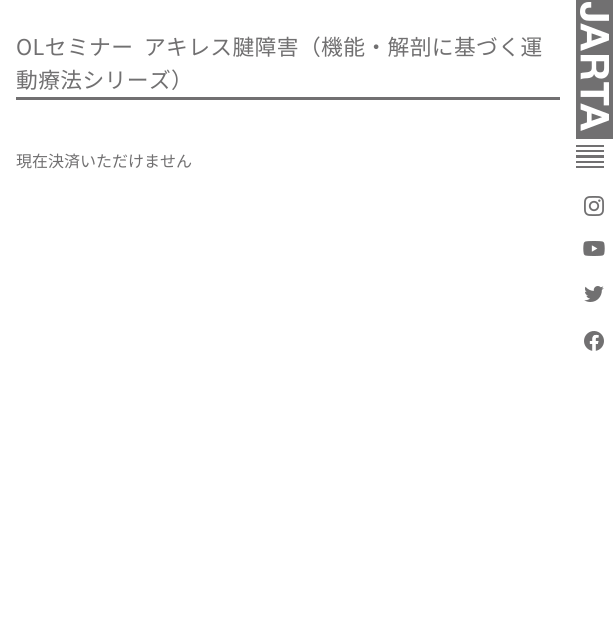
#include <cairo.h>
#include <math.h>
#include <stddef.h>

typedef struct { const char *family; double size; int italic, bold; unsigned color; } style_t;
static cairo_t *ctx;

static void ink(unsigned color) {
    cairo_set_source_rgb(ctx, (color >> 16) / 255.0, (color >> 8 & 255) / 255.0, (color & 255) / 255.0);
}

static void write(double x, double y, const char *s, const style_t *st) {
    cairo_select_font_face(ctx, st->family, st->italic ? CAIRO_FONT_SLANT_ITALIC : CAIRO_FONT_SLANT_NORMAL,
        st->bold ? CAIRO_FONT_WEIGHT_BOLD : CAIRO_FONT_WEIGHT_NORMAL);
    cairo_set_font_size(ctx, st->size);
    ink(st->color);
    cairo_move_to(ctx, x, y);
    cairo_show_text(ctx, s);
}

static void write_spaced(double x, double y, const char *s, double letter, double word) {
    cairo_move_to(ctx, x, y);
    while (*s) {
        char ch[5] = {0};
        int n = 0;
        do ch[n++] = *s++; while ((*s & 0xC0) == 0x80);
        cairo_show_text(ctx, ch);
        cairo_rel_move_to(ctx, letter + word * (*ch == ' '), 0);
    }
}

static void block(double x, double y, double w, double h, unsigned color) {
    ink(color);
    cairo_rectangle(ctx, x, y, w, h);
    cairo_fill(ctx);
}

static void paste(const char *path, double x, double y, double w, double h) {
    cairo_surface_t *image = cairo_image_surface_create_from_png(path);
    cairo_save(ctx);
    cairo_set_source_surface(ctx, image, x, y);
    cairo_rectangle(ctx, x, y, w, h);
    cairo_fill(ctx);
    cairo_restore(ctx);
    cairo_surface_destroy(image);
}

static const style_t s1 = {"Noto Sans JP", 16, 0, 0, 0x717071};

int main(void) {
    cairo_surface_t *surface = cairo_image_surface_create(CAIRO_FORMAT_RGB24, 613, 638);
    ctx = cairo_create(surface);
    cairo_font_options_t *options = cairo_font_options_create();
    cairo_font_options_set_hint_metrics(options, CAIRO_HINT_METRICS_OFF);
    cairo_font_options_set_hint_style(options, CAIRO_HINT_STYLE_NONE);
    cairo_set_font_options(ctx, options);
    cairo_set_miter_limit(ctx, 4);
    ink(0xffffff);
    cairo_paint(ctx);
    block(16, 97, 544, 3, 0x717071);
    cairo_select_font_face(ctx, "Noto Sans JP", CAIRO_FONT_SLANT_NORMAL, CAIRO_FONT_WEIGHT_NORMAL);
    cairo_set_font_size(ctx, 21.75);
    write_spaced(16, 55, "OLセミナー  アキレス腱障害（機能・解剖に基づく運", 0.4, 0);
    write_spaced(16, 88, "動療法シリーズ）", 0.4, 0);
    write(16, 167, "現在決済いただけません", &s1);
    block(576, 0, 37, 139, 0x717071);
    paste("pic1.png", 580, 2, 29, 129);
    block(576, 145, 28, 2, 0x717071);
    block(576, 150, 28, 2, 0x717071);
    block(576, 155, 28, 3, 0x717071);
    block(576, 161, 28, 2, 0x717071);
    block(576, 166, 28, 2, 0x717071);
    paste("pic2.png", 584, 196, 20, 20);
    paste("pic3.png", 583, 241, 22, 15);
    paste("pic4.png", 584, 286, 20, 16);
    paste("pic5.png", 584, 331, 20, 20);
    cairo_surface_write_to_png(surface, "screenshot.png");
    cairo_font_options_destroy(options);
    cairo_destroy(ctx);
    cairo_surface_destroy(surface);
    return 0;
}
